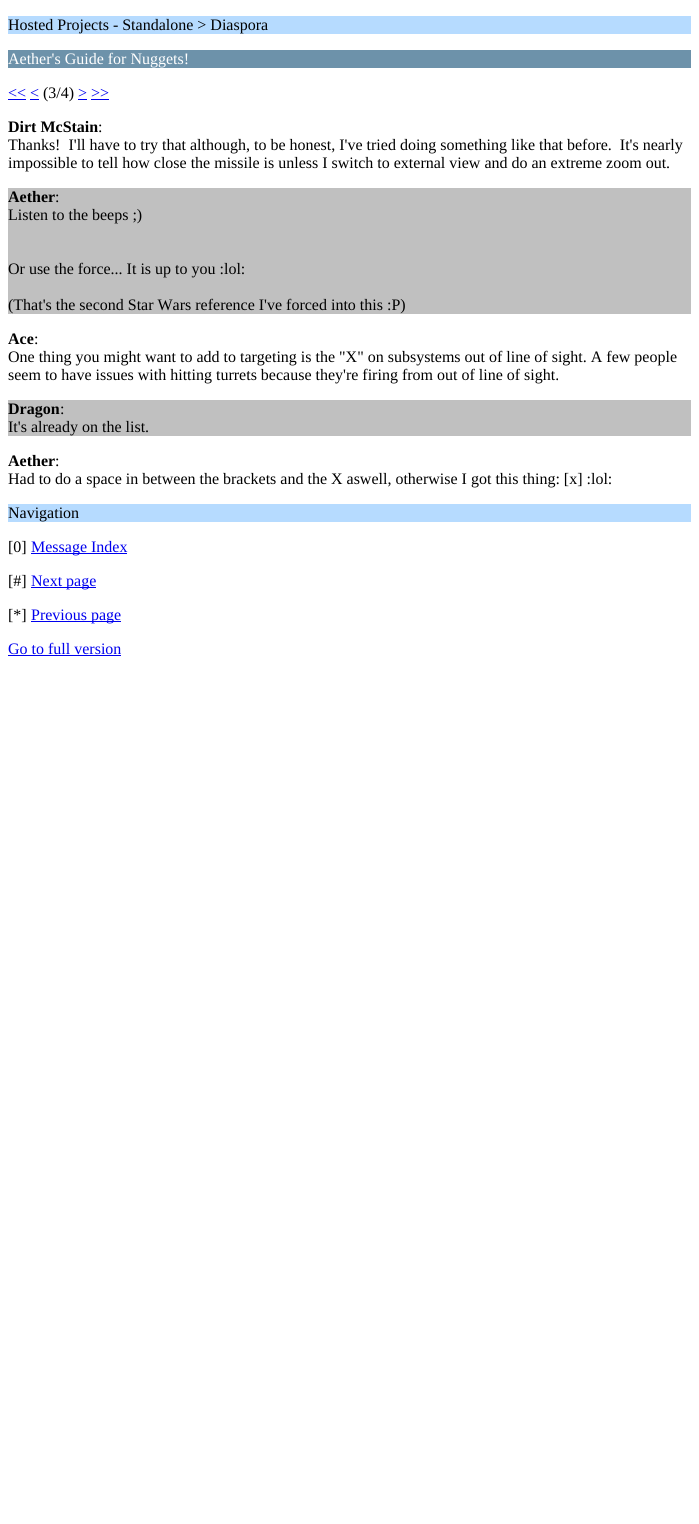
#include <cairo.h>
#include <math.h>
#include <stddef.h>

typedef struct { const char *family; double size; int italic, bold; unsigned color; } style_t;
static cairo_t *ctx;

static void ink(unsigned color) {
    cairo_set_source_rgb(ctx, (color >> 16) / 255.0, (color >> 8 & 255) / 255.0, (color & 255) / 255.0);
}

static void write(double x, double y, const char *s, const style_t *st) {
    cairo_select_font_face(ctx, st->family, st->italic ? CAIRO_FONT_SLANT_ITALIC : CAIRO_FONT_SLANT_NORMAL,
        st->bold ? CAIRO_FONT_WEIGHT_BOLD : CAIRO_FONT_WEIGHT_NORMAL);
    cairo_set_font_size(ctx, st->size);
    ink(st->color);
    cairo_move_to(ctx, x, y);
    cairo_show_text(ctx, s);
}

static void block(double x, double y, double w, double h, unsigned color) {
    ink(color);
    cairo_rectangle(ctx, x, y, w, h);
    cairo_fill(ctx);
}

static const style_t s1 = {"Liberation Serif", 16, 0, 0, 0x000000};
static const style_t s2 = {"Liberation Serif", 16, 0, 0, 0xffffff};
static const style_t s3 = {"Liberation Serif", 16, 0, 0, 0x0000ee};
static const style_t s4 = {"Liberation Serif", 16, 0, 1, 0x000000};

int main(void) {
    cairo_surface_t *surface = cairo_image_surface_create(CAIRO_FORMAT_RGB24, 699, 1524);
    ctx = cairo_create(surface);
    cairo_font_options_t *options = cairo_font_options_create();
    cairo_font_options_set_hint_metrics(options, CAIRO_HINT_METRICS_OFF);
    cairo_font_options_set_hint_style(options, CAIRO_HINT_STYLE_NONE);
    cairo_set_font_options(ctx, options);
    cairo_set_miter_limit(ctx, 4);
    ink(0xffffff);
    cairo_paint(ctx);
    block(8, 16, 683, 18, 0xb6dbff);
    write(8, 30, "Hosted Projects - Standalone > Diaspora", &s1);
    block(8, 50, 683, 18, 0x6d92aa);
    write(8, 64, "Aether's Guide for Nuggets!", &s2);
    write(8, 98, "<< <", &s3);
    block(8, 99, 18, 1, 0x0000ee);
    write(43, 98, "(3/4)", &s1);
    write(78, 98, "> >>", &s3);
    block(78, 99, 9, 1, 0x0000ee);
    block(30, 99, 9, 1, 0x0000ee);
    block(91, 99, 18, 1, 0x0000ee);
    write(8, 132, "Dirt McStain", &s4);
    write(98, 132, ":", &s1);
    write(8, 150, "Thanks!  I'll have to try that although, to be honest, I've tried doing something like that before.  It's nearly", &s1);
    write(8, 168, "impossible to tell how close the missile is unless I switch to external view and do an extreme zoom out.", &s1);
    block(8, 188, 683, 126, 0xc0c0c0);
    write(8, 202, "Aether", &s4);
    write(55, 202, ":", &s1);
    write(8, 220, "Listen to the beeps ;)", &s1);
    write(8, 274, "Or use the force... It is up to you :lol:", &s1);
    write(8, 310, "(That's the second Star Wars reference I've forced into this :P)", &s1);
    write(8, 344, "Ace", &s4);
    write(34, 344, ":", &s1);
    write(8, 362, "One thing you might want to add to targeting is the \"X\" on subsystems out of line of sight. A few people", &s1);
    write(8, 380, "seem to have issues with hitting turrets because they're firing from out of line of sight.", &s1);
    block(8, 400, 683, 36, 0xc0c0c0);
    write(8, 414, "Dragon", &s4);
    write(60, 414, ":", &s1);
    write(8, 432, "It's already on the list.", &s1);
    write(8, 466, "Aether", &s4);
    write(55, 466, ":", &s1);
    write(8, 484, "Had to do a space in between the brackets and the X aswell, otherwise I got this thing: [x] :lol:", &s1);
    block(8, 504, 683, 18, 0xb6dbff);
    write(8, 518, "Navigation", &s1);
    write(8, 552, "[0]", &s1);
    block(31, 553, 96, 1, 0x0000ee);
    write(31, 552, "Message Index", &s3);
    write(8, 586, "[#]", &s1);
    block(31, 587, 65, 1, 0x0000ee);
    write(31, 586, "Next page", &s3);
    write(8, 620, "[*]", &s1);
    block(31, 621, 90, 1, 0x0000ee);
    write(31, 620, "Previous page", &s3);
    write(8, 654, "Go to full version", &s3);
    block(8, 655, 113, 1, 0x0000ee);
    cairo_surface_write_to_png(surface, "screenshot.png");
    cairo_font_options_destroy(options);
    cairo_destroy(ctx);
    cairo_surface_destroy(surface);
    return 0;
}
